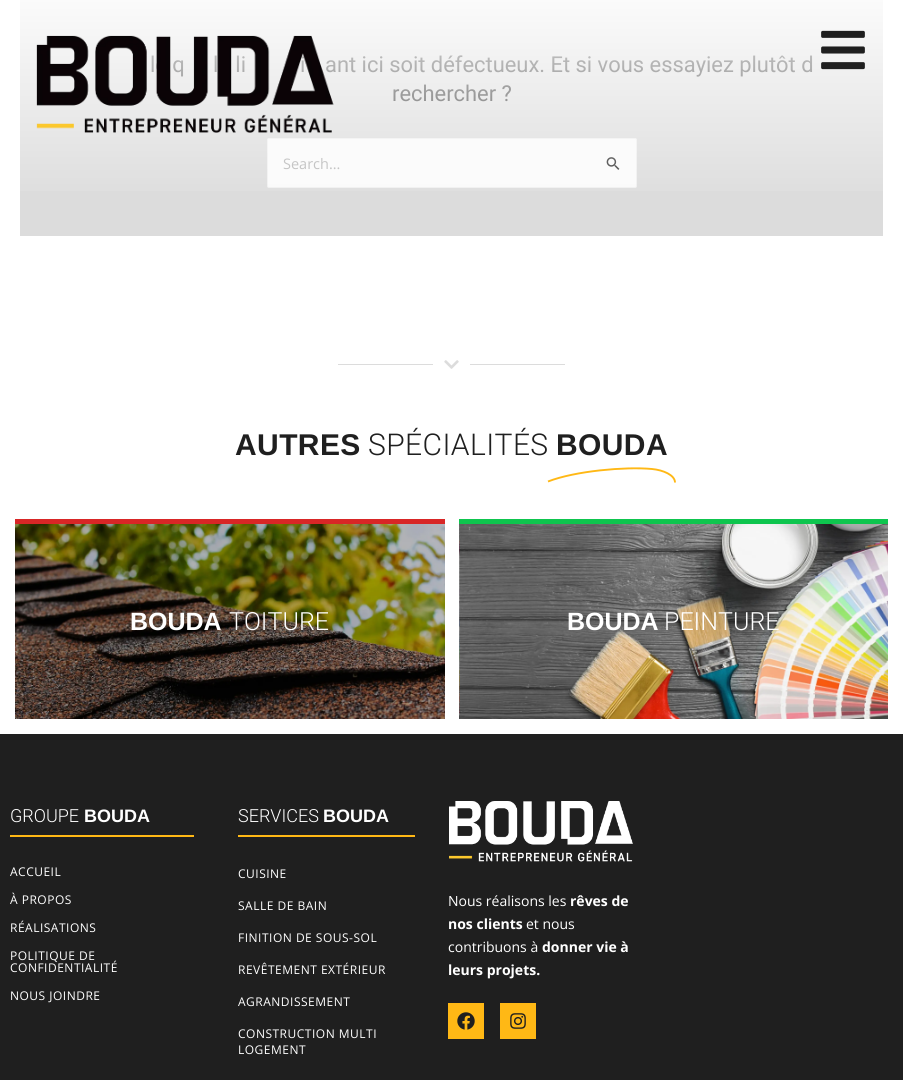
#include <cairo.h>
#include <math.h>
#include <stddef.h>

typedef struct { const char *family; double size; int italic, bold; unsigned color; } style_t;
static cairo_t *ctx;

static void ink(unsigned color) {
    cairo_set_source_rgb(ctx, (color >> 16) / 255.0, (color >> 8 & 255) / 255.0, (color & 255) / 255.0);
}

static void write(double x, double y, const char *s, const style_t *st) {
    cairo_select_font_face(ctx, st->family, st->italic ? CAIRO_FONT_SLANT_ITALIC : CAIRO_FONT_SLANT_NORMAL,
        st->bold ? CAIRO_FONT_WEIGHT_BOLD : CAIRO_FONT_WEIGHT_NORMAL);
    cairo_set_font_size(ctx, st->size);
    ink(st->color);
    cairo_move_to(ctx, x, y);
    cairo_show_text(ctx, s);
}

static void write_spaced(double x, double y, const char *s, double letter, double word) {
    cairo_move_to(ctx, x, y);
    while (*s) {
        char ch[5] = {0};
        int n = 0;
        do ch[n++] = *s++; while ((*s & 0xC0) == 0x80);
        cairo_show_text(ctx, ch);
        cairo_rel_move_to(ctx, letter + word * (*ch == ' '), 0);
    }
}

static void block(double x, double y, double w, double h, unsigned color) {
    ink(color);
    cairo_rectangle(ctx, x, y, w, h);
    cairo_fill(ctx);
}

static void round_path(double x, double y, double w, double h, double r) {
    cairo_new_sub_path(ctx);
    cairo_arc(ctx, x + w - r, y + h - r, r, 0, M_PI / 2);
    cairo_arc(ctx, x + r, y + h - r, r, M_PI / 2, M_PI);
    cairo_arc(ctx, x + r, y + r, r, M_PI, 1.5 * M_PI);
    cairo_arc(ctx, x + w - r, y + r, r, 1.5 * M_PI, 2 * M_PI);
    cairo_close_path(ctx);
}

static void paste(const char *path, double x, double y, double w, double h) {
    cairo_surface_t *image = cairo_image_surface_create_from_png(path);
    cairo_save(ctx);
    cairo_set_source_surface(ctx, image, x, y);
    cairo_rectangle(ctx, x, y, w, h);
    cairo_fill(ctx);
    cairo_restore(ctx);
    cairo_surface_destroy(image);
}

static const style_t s1 = {"Roboto", 21.9, 0, 0, 0x3f3f3f};
static const style_t s2 = {"Open Sans", 14.5, 0, 0, 0xb8b8b8};
static const style_t s3 = {"Liberation Sans", 25, 0, 1, 0xffffff};
static const style_t s4 = {"Roboto Light", 25, 0, 0, 0xffffff};
static const style_t s5 = {"Roboto Light", 18, 0, 0, 0xffffff};
static const style_t s6 = {"Liberation Sans", 18, 0, 1, 0xffffff};
static const style_t s7 = {"Open Sans", 14, 0, 0, 0xffffff};
static const style_t s8 = {"Open Sans", 14, 0, 1, 0xffffff};

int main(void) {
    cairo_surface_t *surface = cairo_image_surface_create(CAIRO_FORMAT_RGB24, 903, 1080);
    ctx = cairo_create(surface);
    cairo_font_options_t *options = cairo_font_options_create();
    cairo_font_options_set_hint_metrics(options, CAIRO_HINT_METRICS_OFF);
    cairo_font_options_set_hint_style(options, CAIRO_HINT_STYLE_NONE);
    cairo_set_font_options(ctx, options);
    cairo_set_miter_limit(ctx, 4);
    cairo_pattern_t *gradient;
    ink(0xffffff);
    cairo_paint(ctx);
    block(20, 0, 863, 236, 0xdcdcdc);
    write(150, 72, "le q", &s1);
    write(213, 72, "le li", &s1);
    write(300, 72, "i", &s1);
    write(325, 72, "ant ici soit défectueux. Et si vous essayiez plutôt d", &s1);
    write(392, 101, "rechercher ?", &s1);
    ink(0xfafafa);
    round_path(267.5, 138.5, 369, 49, 1.5);
    cairo_fill_preserve(ctx);
    ink(0xf0f0f0);
    cairo_set_line_width(ctx, 1);
    cairo_stroke(ctx);
    write(283, 169, "Search...", &s2);
    paste("pic3.png", 606, 157, 14, 13);
    gradient = cairo_pattern_create_linear(452, 0, 452, 208);
    cairo_pattern_add_color_stop_rgba(gradient, 0, 1, 1, 1, 0.88);
    cairo_pattern_add_color_stop_rgba(gradient, 1, 1, 1, 1, 0);
    cairo_set_source(ctx, gradient);
    cairo_pattern_destroy(gradient);
    cairo_rectangle(ctx, 20, 0, 863, 191);
    cairo_fill(ctx);
    paste("pic1.png", 36, 35, 298, 98);
    paste("pic2.png", 821, 30, 44, 40);
    block(338, 364, 95, 1, 0xdcdcdc);
    paste("pic4.png", 444, 360, 15, 9);
    block(470, 364, 95, 1, 0xdcdcdc);
    cairo_select_font_face(ctx, "Liberation Sans", CAIRO_FONT_SLANT_NORMAL, CAIRO_FONT_WEIGHT_BOLD);
    cairo_set_font_size(ctx, 30);
    ink(0x1f1f1f);
    write_spaced(235, 455, "AUTRES", 0.4, 0);
    cairo_select_font_face(ctx, "Roboto Light", CAIRO_FONT_SLANT_NORMAL, CAIRO_FONT_WEIGHT_NORMAL);
    write_spaced(368, 455, "SPÉCIALITÉS", 0.4, 0);
    cairo_select_font_face(ctx, "Liberation Sans", CAIRO_FONT_SLANT_NORMAL, CAIRO_FONT_WEIGHT_BOLD);
    write_spaced(556, 455, "BOUDA", 0.4, 0);
    cairo_new_path(ctx);
    cairo_move_to(ctx, 548, 481.5);
    cairo_curve_to(ctx, 575, 471, 625, 466.5, 652, 469);
    cairo_curve_to(ctx, 663, 470, 675, 475, 675, 482.5);
    ink(0xffb815);
    cairo_set_line_width(ctx, 1.9);
    cairo_stroke(ctx);
    paste("pic5.png", 15, 524, 430, 195);
    block(15, 519, 430, 5, 0xd82626);
    write(130, 630, "BOUDA", &s3);
    write(229, 630, "TOITURE", &s4);
    paste("pic6.png", 459, 524, 429, 195);
    block(459, 519, 429, 5, 0x0ec54e);
    write(567, 630, "BOUDA", &s3);
    write(664, 630, "PEINTURE", &s4);
    block(0, 734, 903, 346, 0x1f1f1f);
    block(10, 835, 184, 2, 0xffb815);
    write(10, 822, "GROUPE", &s5);
    write(84, 822, "BOUDA", &s6);
    cairo_select_font_face(ctx, "Open Sans", CAIRO_FONT_SLANT_NORMAL, CAIRO_FONT_WEIGHT_NORMAL);
    cairo_set_font_size(ctx, 12);
    write_spaced(10, 876, "ACCUEIL", 0.5, 0);
    write_spaced(10, 904, "À PROPOS", 0.5, 0);
    write_spaced(10, 932, "RÉALISATIONS", 0.5, 0);
    write_spaced(10, 960, "POLITIQUE DE", 0.5, 0);
    write_spaced(10, 972, "CONFIDENTIALITÉ", 0.5, 0);
    write_spaced(10, 1000, "NOUS JOINDRE", 0.5, 0);
    block(238, 835, 177, 2, 0xffb815);
    write(238, 822, "SERVICES", &s5);
    write(323, 822, "BOUDA", &s6);
    cairo_select_font_face(ctx, "Open Sans", CAIRO_FONT_SLANT_NORMAL, CAIRO_FONT_WEIGHT_NORMAL);
    cairo_set_font_size(ctx, 12);
    write_spaced(238, 878, "CUISINE", 0.5, 0);
    write_spaced(238, 910, "SALLE DE BAIN", 0.5, 0);
    write_spaced(238, 942, "FINITION DE SOUS-SOL", 0.5, 0);
    write_spaced(238, 974, "REVÊTEMENT EXTÉRIEUR", 0.5, 0);
    write_spaced(238, 1006, "AGRANDISSEMENT", 0.5, 0);
    write_spaced(238, 1038, "CONSTRUCTION MULTI", 0.5, 0);
    write_spaced(238, 1054, "LOGEMENT", 0.5, 0);
    paste("pic7.png", 449, 801, 184, 61);
    write(448, 906, "Nous réalisons les", &s7);
    write(570, 906, "rêves de", &s8);
    write(448, 929, "nos clients", &s8);
    write(526, 929, "et nous", &s7);
    write(448, 952, "contribuons à", &s7);
    write(542, 952, "donner vie à", &s8);
    write(448, 975, "leurs projets.", &s8);
    block(448, 1003, 36, 36, 0xffb815);
    paste("pic8.png", 457, 1012, 18, 18);
    block(500, 1003, 36, 36, 0xffb815);
    paste("pic9.png", 510, 1013, 16, 16);
    cairo_surface_write_to_png(surface, "screenshot.png");
    cairo_font_options_destroy(options);
    cairo_destroy(ctx);
    cairo_surface_destroy(surface);
    return 0;
}
